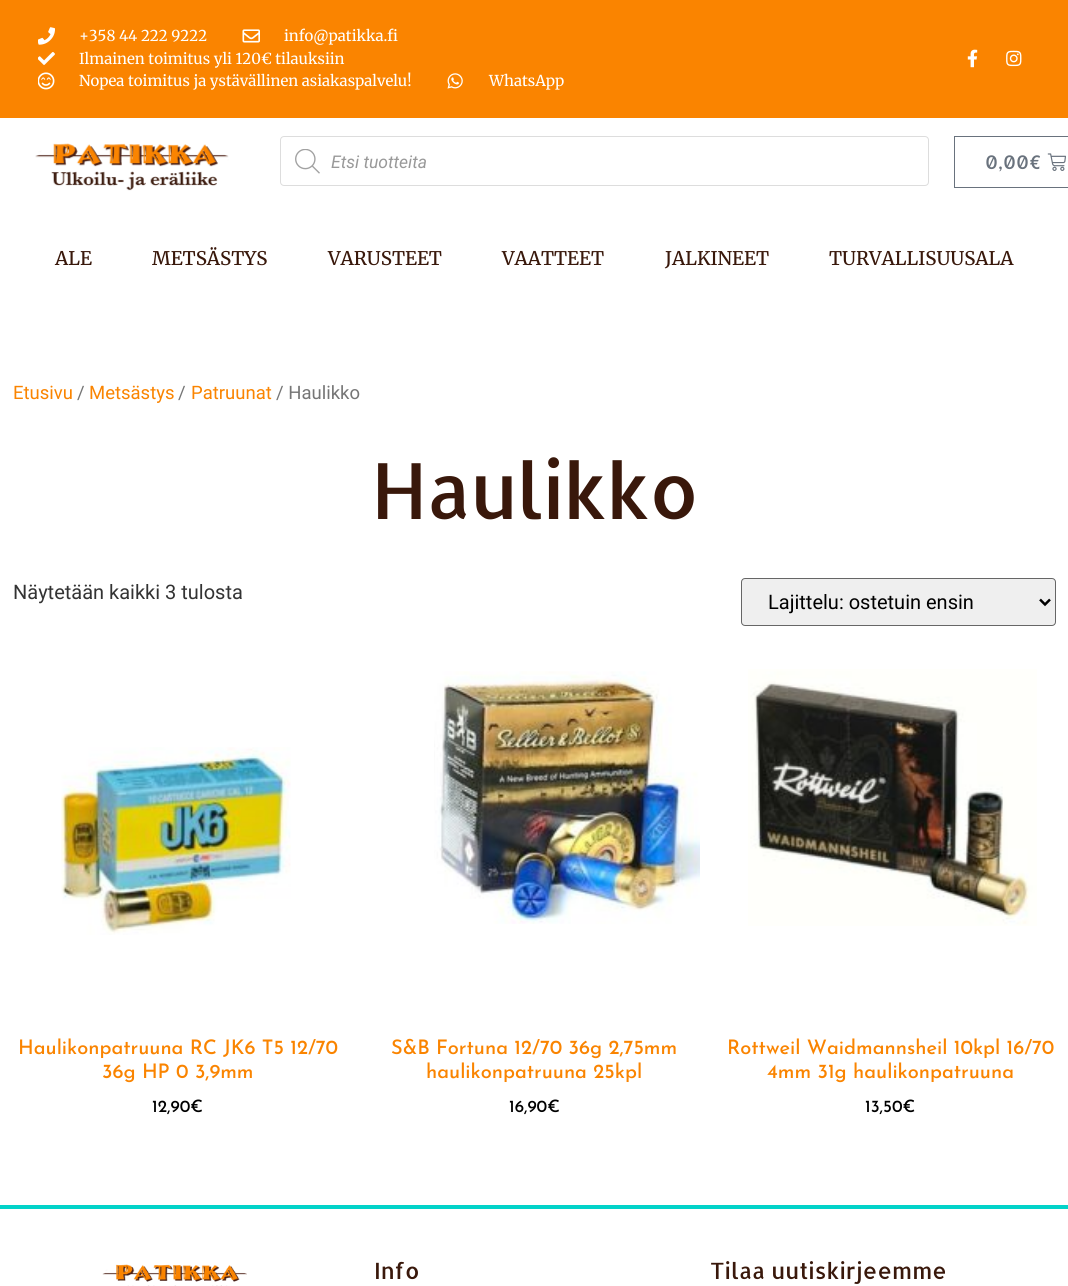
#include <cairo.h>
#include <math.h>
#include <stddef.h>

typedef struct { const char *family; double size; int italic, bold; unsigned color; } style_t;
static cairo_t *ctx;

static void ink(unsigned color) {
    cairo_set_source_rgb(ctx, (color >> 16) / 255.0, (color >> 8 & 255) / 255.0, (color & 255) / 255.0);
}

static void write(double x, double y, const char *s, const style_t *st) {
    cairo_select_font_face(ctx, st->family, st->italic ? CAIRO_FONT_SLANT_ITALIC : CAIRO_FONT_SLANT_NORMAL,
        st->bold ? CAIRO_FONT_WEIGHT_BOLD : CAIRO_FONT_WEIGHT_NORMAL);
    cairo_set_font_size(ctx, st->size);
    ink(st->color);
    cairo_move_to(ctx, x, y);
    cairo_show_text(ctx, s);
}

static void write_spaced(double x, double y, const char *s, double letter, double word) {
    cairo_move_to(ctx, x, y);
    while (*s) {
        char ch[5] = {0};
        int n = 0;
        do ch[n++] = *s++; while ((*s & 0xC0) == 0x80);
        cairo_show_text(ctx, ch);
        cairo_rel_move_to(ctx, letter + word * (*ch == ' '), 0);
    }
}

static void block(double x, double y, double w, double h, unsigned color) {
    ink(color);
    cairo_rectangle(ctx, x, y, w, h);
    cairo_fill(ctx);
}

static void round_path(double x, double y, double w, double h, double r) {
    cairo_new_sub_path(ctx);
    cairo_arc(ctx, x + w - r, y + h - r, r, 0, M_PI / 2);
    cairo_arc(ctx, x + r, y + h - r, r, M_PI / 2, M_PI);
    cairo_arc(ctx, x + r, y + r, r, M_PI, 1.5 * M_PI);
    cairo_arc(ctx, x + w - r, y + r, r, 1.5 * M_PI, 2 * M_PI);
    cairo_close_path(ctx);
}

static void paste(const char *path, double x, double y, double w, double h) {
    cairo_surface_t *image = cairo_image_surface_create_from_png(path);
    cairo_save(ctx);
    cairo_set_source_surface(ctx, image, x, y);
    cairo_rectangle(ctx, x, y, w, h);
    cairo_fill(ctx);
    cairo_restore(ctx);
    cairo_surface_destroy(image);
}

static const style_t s1 = {"Merriweather", 15, 0, 0, 0xffffff};
static const style_t s2 = {"Roboto", 17.5, 1, 0, 0x999999};
static const style_t s3 = {"Allerta", 18.75, 0, 0, 0x69727d};
static const style_t s4 = {"Merriweather Medium", 18.75, 0, 0, 0x39180b};
static const style_t s5 = {"Roboto", 18.5, 0, 0, 0xfa8400};
static const style_t s6 = {"Roboto", 18.5, 0, 0, 0x767676};
static const style_t s7 = {"Roboto", 20, 0, 0, 0x333333};
static const style_t s8 = {"Roboto", 20, 0, 0, 0x000000};
static const style_t s9 = {"Josefin Sans Medium", 20, 0, 0, 0xfa8400};
static const style_t s10 = {"Josefin Sans Medium", 17, 0, 0, 0x000000};
static const style_t s11 = {"Allerta", 22.5, 0, 0, 0x39180b};

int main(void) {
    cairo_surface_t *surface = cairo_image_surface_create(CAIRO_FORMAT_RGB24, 1068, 1286);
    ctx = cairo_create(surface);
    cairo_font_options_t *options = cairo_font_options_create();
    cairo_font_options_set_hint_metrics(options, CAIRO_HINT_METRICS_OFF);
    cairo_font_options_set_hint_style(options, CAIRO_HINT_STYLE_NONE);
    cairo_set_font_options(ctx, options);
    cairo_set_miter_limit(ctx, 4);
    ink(0xffffff);
    cairo_paint(ctx);
    block(0, 0, 1068, 118, 0xfa8400);
    paste("pic1.png", 38, 27, 17, 18);
    write(79, 41, "+358 44 222 9222", &s1);
    paste("pic2.png", 242, 29, 18, 14);
    write(284, 41, "info@patikka.fi", &s1);
    paste("pic3.png", 38, 52, 17, 13);
    write(79, 64, "Ilmainen toimitus yli 120€ tilauksiin", &s1);
    paste("pic4.png", 38, 72, 17, 18);
    write(79, 86, "Nopea toimitus ja ystävällinen asiakaspalvelu!", &s1);
    paste("pic5.png", 447, 73, 16, 16);
    write(489, 86, "WhatsApp", &s1);
    paste("pic6.png", 967, 49, 11, 19);
    paste("pic7.png", 1006, 50, 16, 17);
    paste("pic8.png", 35, 143, 194, 48);
    round_path(280.5, 136.5, 648, 49, 3.5);
    ink(0xdddddd);
    cairo_set_line_width(ctx, 1);
    cairo_stroke(ctx);
    paste("pic9.png", 295, 149, 25, 25);
    write(331, 168, "Etsi tuotteita", &s2);
    cairo_rectangle(ctx, 954.5, 136.5, 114, 51);
    ink(0x69727d);
    cairo_stroke(ctx);
    write(985, 169, "0,00€", &s3);
    paste("pic10.png", 1047, 153, 19, 18);
    write(55, 265, "ALE", &s4);
    write(152, 265, "METSÄSTYS", &s4);
    write(328, 265, "VARUSTEET", &s4);
    write(502, 265, "VAATTEET", &s4);
    write(665, 265, "JALKINEET", &s4);
    write(829, 265, "TURVALLISUUSALA", &s4);
    write(13, 399, "Etusivu", &s5);
    write(77, 399, "/", &s6);
    write(89, 399, "Metsästys", &s5);
    write(178, 399, "/", &s6);
    write(191, 399, "Patruunat", &s5);
    write(276, 399, "/ Haulikko", &s6);
    cairo_select_font_face(ctx, "Allerta", CAIRO_FONT_SLANT_NORMAL, CAIRO_FONT_WEIGHT_NORMAL);
    cairo_set_font_size(ctx, 77.5);
    ink(0x39180b);
    write_spaced(371, 519, "Haulikko", -1.5, 0);
    write(13, 599, "Näytetään kaikki 3 tulosta", &s7);
    ink(0xefefef);
    round_path(741.5, 578.5, 314, 47, 3.5);
    cairo_fill_preserve(ctx);
    ink(0x666666);
    cairo_stroke(ctx);
    cairo_new_path(ctx);
    cairo_move_to(ctx, 1040, 599.5);
    cairo_line_to(ctx, 1045, 604.5);
    cairo_line_to(ctx, 1050, 599.5);
    ink(0x000000);
    cairo_set_line_width(ctx, 2.5);
    cairo_stroke(ctx);
    write(768, 609, "Lajittelu: ostetuin ensin", &s8);
    paste("pic11.png", 61, 747, 230, 188);
    write(18, 1054, "Haulikonpatruuna RC JK6 T5 12/70", &s9);
    write(102, 1078, "36g HP 0 3,9mm", &s9);
    write(152, 1112, "12,90€", &s10);
    paste("pic12.png", 434, 671, 266, 253);
    write(391, 1054, "S&B Fortuna 12/70 36g 2,75mm", &s9);
    write(426, 1078, "haulikonpatruuna 25kpl", &s9);
    write(509, 1112, "16,90€", &s10);
    paste("pic13.png", 748, 669, 289, 257);
    write(727, 1054, "Rottweil Waidmannsheil 10kpl 16/70", &s9);
    write(767, 1078, "4mm 31g haulikonpatruuna", &s9);
    write(865, 1112, "13,50€", &s10);
    block(0, 1205, 1068, 4, 0x02d3c9);
    paste("pic14.png", 102, 1264, 145, 22);
    write(374, 1279, "Info", &s11);
    write(710, 1279, "Tilaa uutiskirjeemme", &s11);
    cairo_surface_write_to_png(surface, "screenshot.png");
    cairo_font_options_destroy(options);
    cairo_destroy(ctx);
    cairo_surface_destroy(surface);
    return 0;
}
